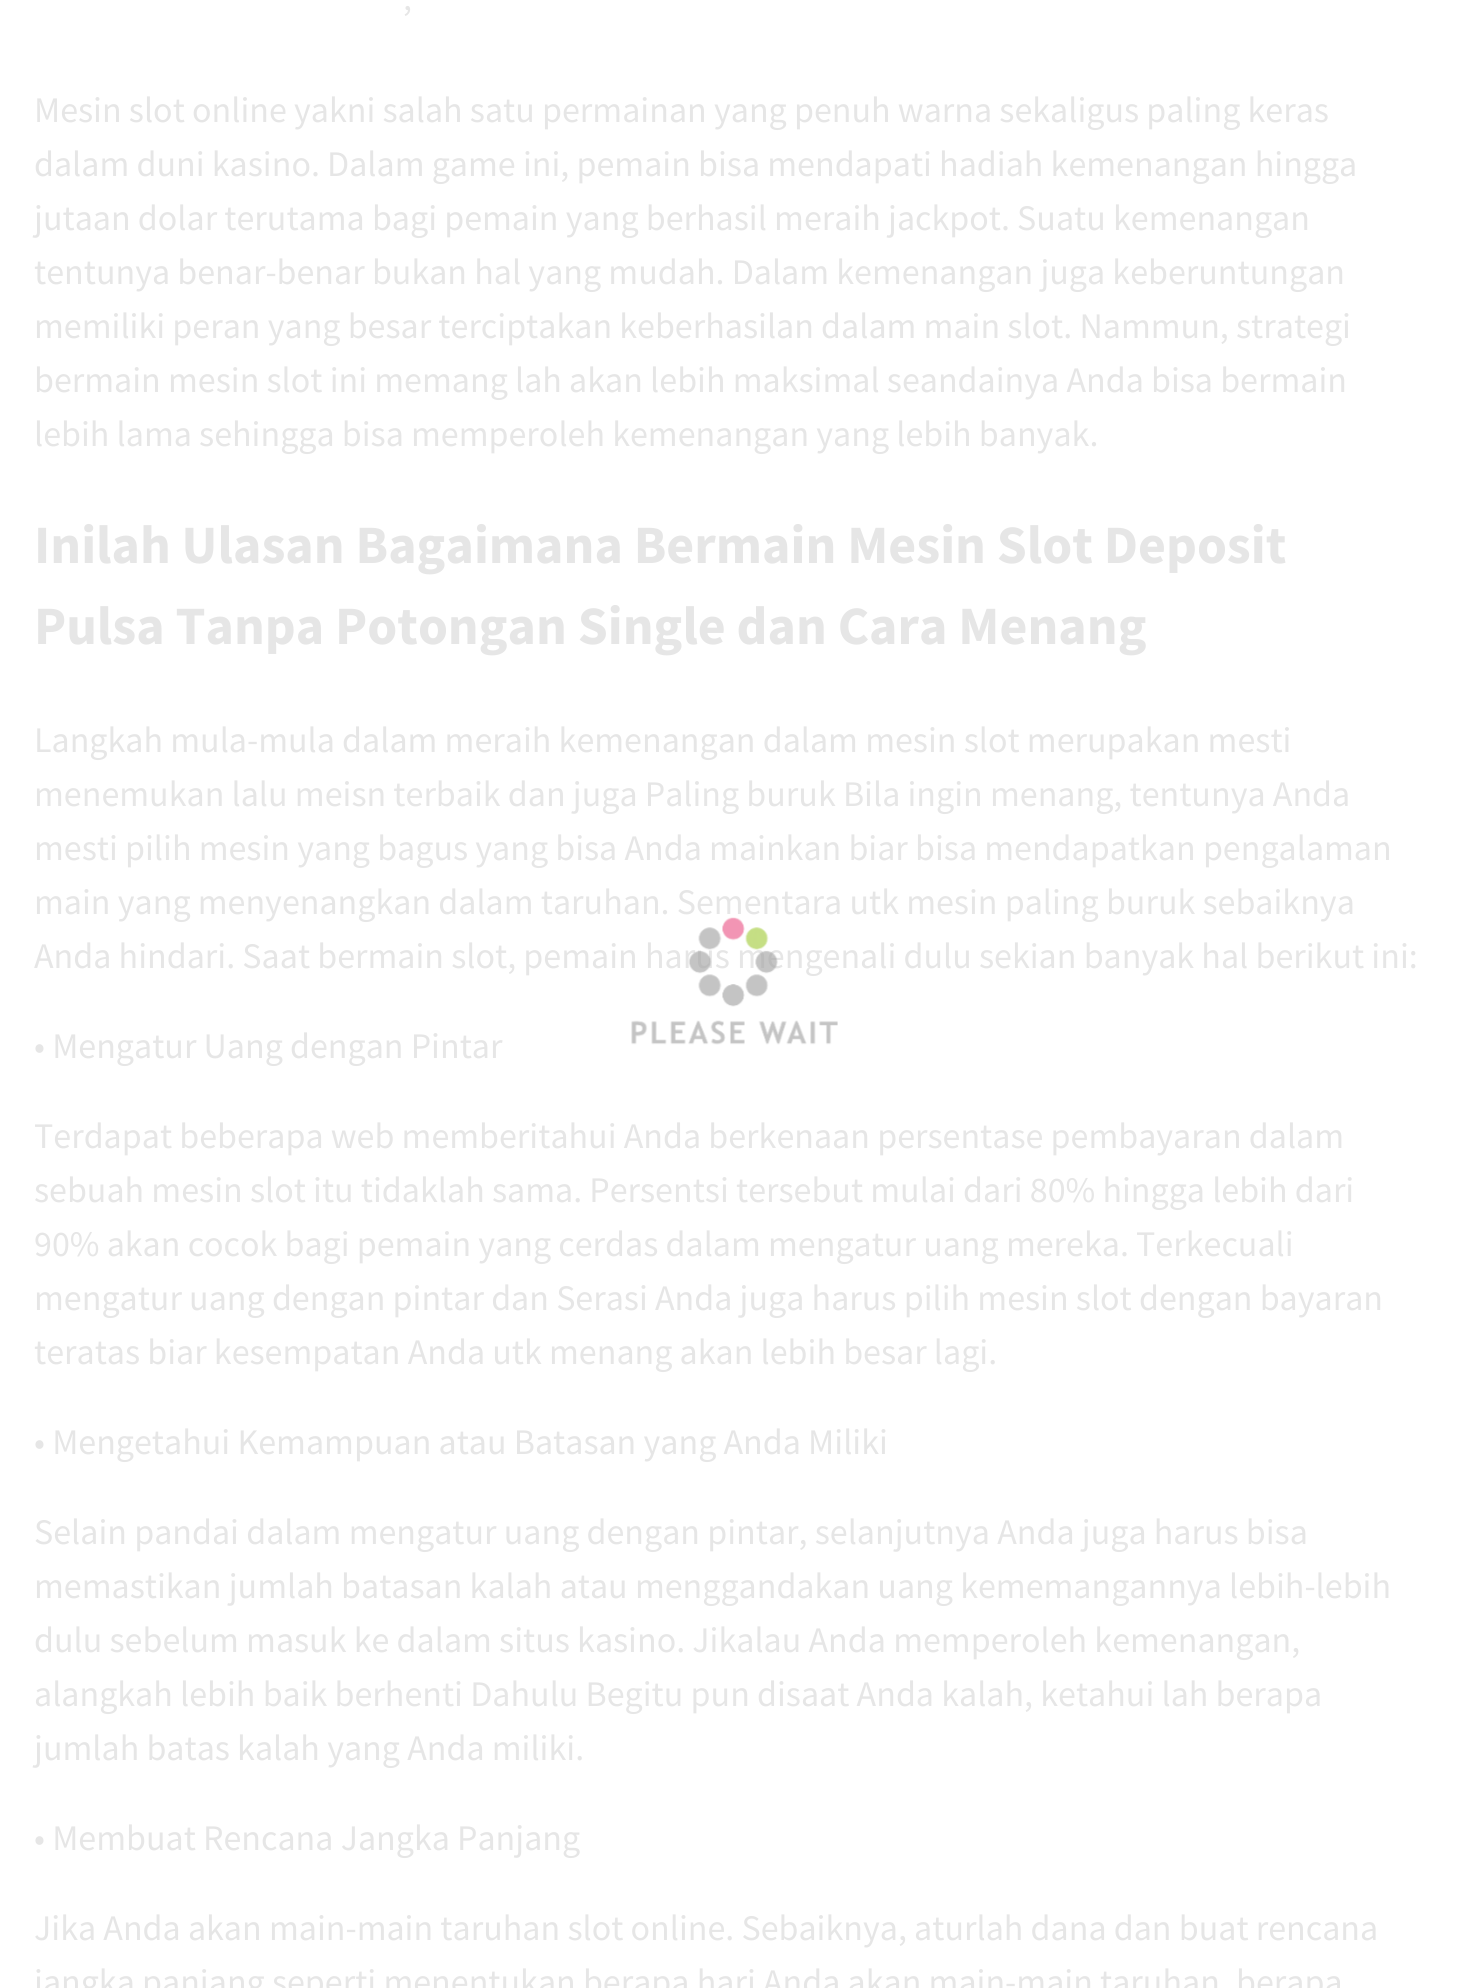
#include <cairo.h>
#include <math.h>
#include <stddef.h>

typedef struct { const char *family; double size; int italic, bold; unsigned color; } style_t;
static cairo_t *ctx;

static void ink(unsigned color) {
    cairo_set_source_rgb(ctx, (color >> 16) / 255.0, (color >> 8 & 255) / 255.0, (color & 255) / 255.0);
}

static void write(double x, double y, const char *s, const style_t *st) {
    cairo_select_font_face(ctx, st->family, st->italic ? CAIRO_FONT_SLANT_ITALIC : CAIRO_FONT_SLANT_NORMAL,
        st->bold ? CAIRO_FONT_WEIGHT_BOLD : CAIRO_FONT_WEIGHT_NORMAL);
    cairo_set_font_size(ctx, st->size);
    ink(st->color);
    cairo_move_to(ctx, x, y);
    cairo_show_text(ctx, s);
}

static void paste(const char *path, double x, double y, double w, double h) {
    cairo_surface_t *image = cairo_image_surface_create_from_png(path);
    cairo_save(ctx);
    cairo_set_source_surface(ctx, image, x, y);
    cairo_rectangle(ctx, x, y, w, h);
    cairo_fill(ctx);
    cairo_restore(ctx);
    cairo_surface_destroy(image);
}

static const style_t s1 = {"Source Sans Pro", 36, 0, 0, 0xe6e6e6};
static const style_t s2 = {"Source Sans Pro", 54, 0, 1, 0xe6e6e6};

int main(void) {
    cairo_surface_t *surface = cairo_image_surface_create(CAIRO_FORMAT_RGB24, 1459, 1988);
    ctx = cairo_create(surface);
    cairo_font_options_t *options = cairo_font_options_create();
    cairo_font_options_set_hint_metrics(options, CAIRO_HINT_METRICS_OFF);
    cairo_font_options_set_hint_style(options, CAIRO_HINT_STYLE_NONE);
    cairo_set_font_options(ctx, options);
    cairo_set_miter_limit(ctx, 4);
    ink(0xffffff);
    cairo_paint(ctx);
    write(403, 10, ",", &s1);
    write(34, 122, "Mesin slot online yakni salah satu permainan yang penuh warna sekaligus paling keras", &s1);
    write(34, 176, "dalam duni kasino. Dalam game ini, pemain bisa mendapati hadiah kemenangan hingga", &s1);
    write(34, 230, "jutaan dolar terutama bagi pemain yang berhasil meraih jackpot. Suatu kemenangan", &s1);
    write(34, 284, "tentunya benar-benar bukan hal yang mudah. Dalam kemenangan juga keberuntungan", &s1);
    write(34, 338, "memiliki peran yang besar terciptakan keberhasilan dalam main slot. Nammun, strategi", &s1);
    write(34, 392, "bermain mesin slot ini memang lah akan lebih maksimal seandainya Anda bisa bermain", &s1);
    write(34, 446, "lebih lama sehingga bisa memperoleh kemenangan yang lebih banyak.", &s1);
    write(34, 563, "Inilah Ulasan Bagaimana Bermain Mesin Slot Deposit", &s2);
    write(34, 644, "Pulsa Tanpa Potongan Single dan Cara Menang", &s2);
    write(34, 752, "Langkah mula-mula dalam meraih kemenangan dalam mesin slot merupakan mesti", &s1);
    write(34, 806, "menemukan lalu meisn terbaik dan juga Paling buruk Bila ingin menang, tentunya Anda", &s1);
    write(34, 860, "mesti pilih mesin yang bagus yang bisa Anda mainkan biar bisa mendapatkan pengalaman", &s1);
    write(34, 914, "main yang menyenangkan dalam taruhan. Sementara utk mesin paling buruk sebaiknya", &s1);
    write(34, 968, "Anda hindari. Saat bermain slot, pemain harus mengenali dulu sekian banyak hal berikut ini:", &s1);
    write(34, 1058, "• Mengatur Uang dengan Pintar", &s1);
    write(34, 1148, "Terdapat beberapa web memberitahui Anda berkenaan persentase pembayaran dalam", &s1);
    write(34, 1202, "sebuah mesin slot itu tidaklah sama. Persentsi tersebut mulai dari 80% hingga lebih dari", &s1);
    write(34, 1256, "90% akan cocok bagi pemain yang cerdas dalam mengatur uang mereka. Terkecuali", &s1);
    write(34, 1310, "mengatur uang dengan pintar dan Serasi Anda juga harus pilih mesin slot dengan bayaran", &s1);
    write(34, 1364, "teratas biar kesempatan Anda utk menang akan lebih besar lagi.", &s1);
    write(34, 1454, "• Mengetahui Kemampuan atau Batasan yang Anda Miliki", &s1);
    write(34, 1544, "Selain pandai dalam mengatur uang dengan pintar, selanjutnya Anda juga harus bisa", &s1);
    write(34, 1598, "memastikan jumlah batasan kalah atau menggandakan uang kememangannya lebih-lebih", &s1);
    write(34, 1652, "dulu sebelum masuk ke dalam situs kasino. Jikalau Anda memperoleh kemenangan,", &s1);
    write(34, 1706, "alangkah lebih baik berhenti Dahulu Begitu pun disaat Anda kalah, ketahui lah berapa", &s1);
    write(34, 1760, "jumlah batas kalah yang Anda miliki.", &s1);
    write(34, 1850, "• Membuat Rencana Jangka Panjang", &s1);
    write(34, 1940, "Jika Anda akan main-main taruhan slot online. Sebaiknya, aturlah dana dan buat rencana", &s1);
    write(34, 1994, "jangka panjang seperti menentukan berapa hari Anda akan main-main taruhan, berapa", &s1);
    paste("pic1.png", 631, 917, 207, 128);
    cairo_surface_write_to_png(surface, "screenshot.png");
    cairo_font_options_destroy(options);
    cairo_destroy(ctx);
    cairo_surface_destroy(surface);
    return 0;
}
